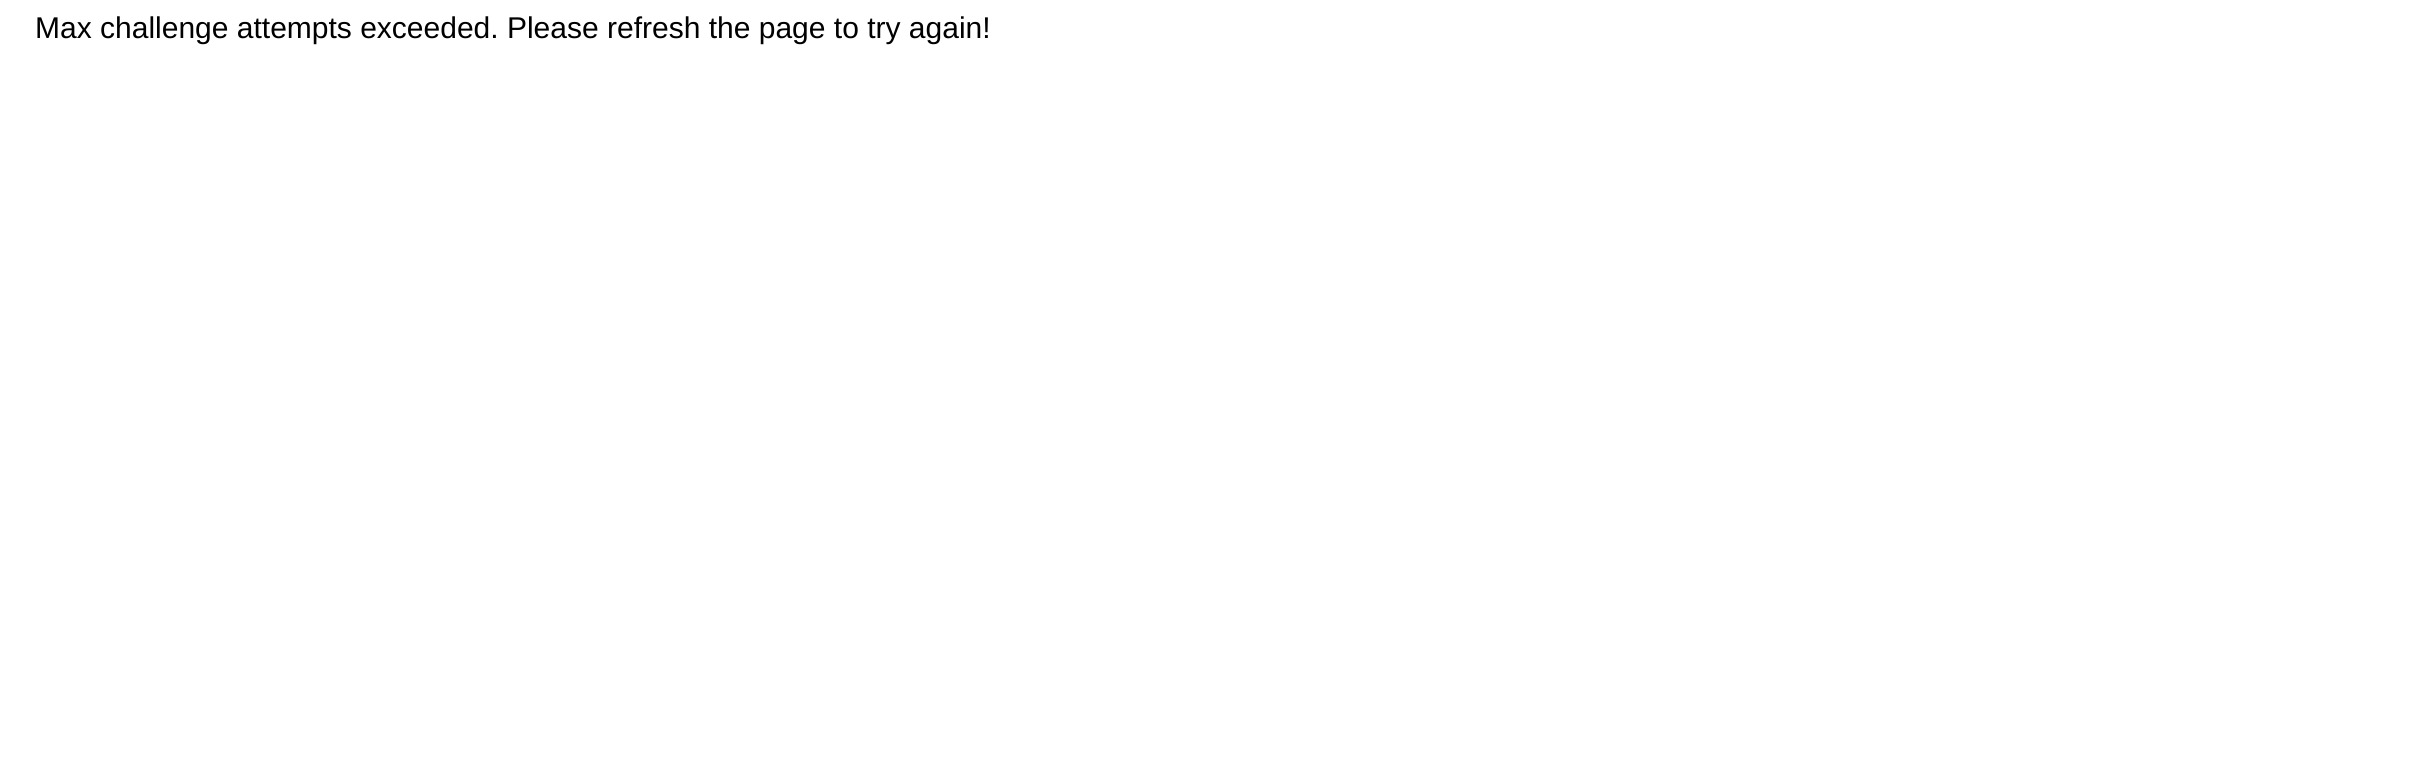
#include <cairo.h>
#include <math.h>
#include <stddef.h>

typedef struct { const char *family; double size; int italic, bold; unsigned color; } style_t;
static cairo_t *ctx;

static void ink(unsigned color) {
    cairo_set_source_rgb(ctx, (color >> 16) / 255.0, (color >> 8 & 255) / 255.0, (color & 255) / 255.0);
}

static void write(double x, double y, const char *s, const style_t *st) {
    cairo_select_font_face(ctx, st->family, st->italic ? CAIRO_FONT_SLANT_ITALIC : CAIRO_FONT_SLANT_NORMAL,
        st->bold ? CAIRO_FONT_WEIGHT_BOLD : CAIRO_FONT_WEIGHT_NORMAL);
    cairo_set_font_size(ctx, st->size);
    ink(st->color);
    cairo_move_to(ctx, x, y);
    cairo_show_text(ctx, s);
}

static const style_t s1 = {"Liberation Sans", 30, 0, 0, 0x000000};

int main(void) {
    cairo_surface_t *surface = cairo_image_surface_create(CAIRO_FORMAT_RGB24, 2421, 760);
    ctx = cairo_create(surface);
    cairo_font_options_t *options = cairo_font_options_create();
    cairo_font_options_set_hint_metrics(options, CAIRO_HINT_METRICS_OFF);
    cairo_font_options_set_hint_style(options, CAIRO_HINT_STYLE_NONE);
    cairo_set_font_options(ctx, options);
    cairo_set_miter_limit(ctx, 4);
    ink(0xffffff);
    cairo_paint(ctx);
    write(35, 38, "Max challenge attempts exceeded. Please refresh the page to try again!", &s1);
    cairo_surface_write_to_png(surface, "screenshot.png");
    cairo_font_options_destroy(options);
    cairo_destroy(ctx);
    cairo_surface_destroy(surface);
    return 0;
}
